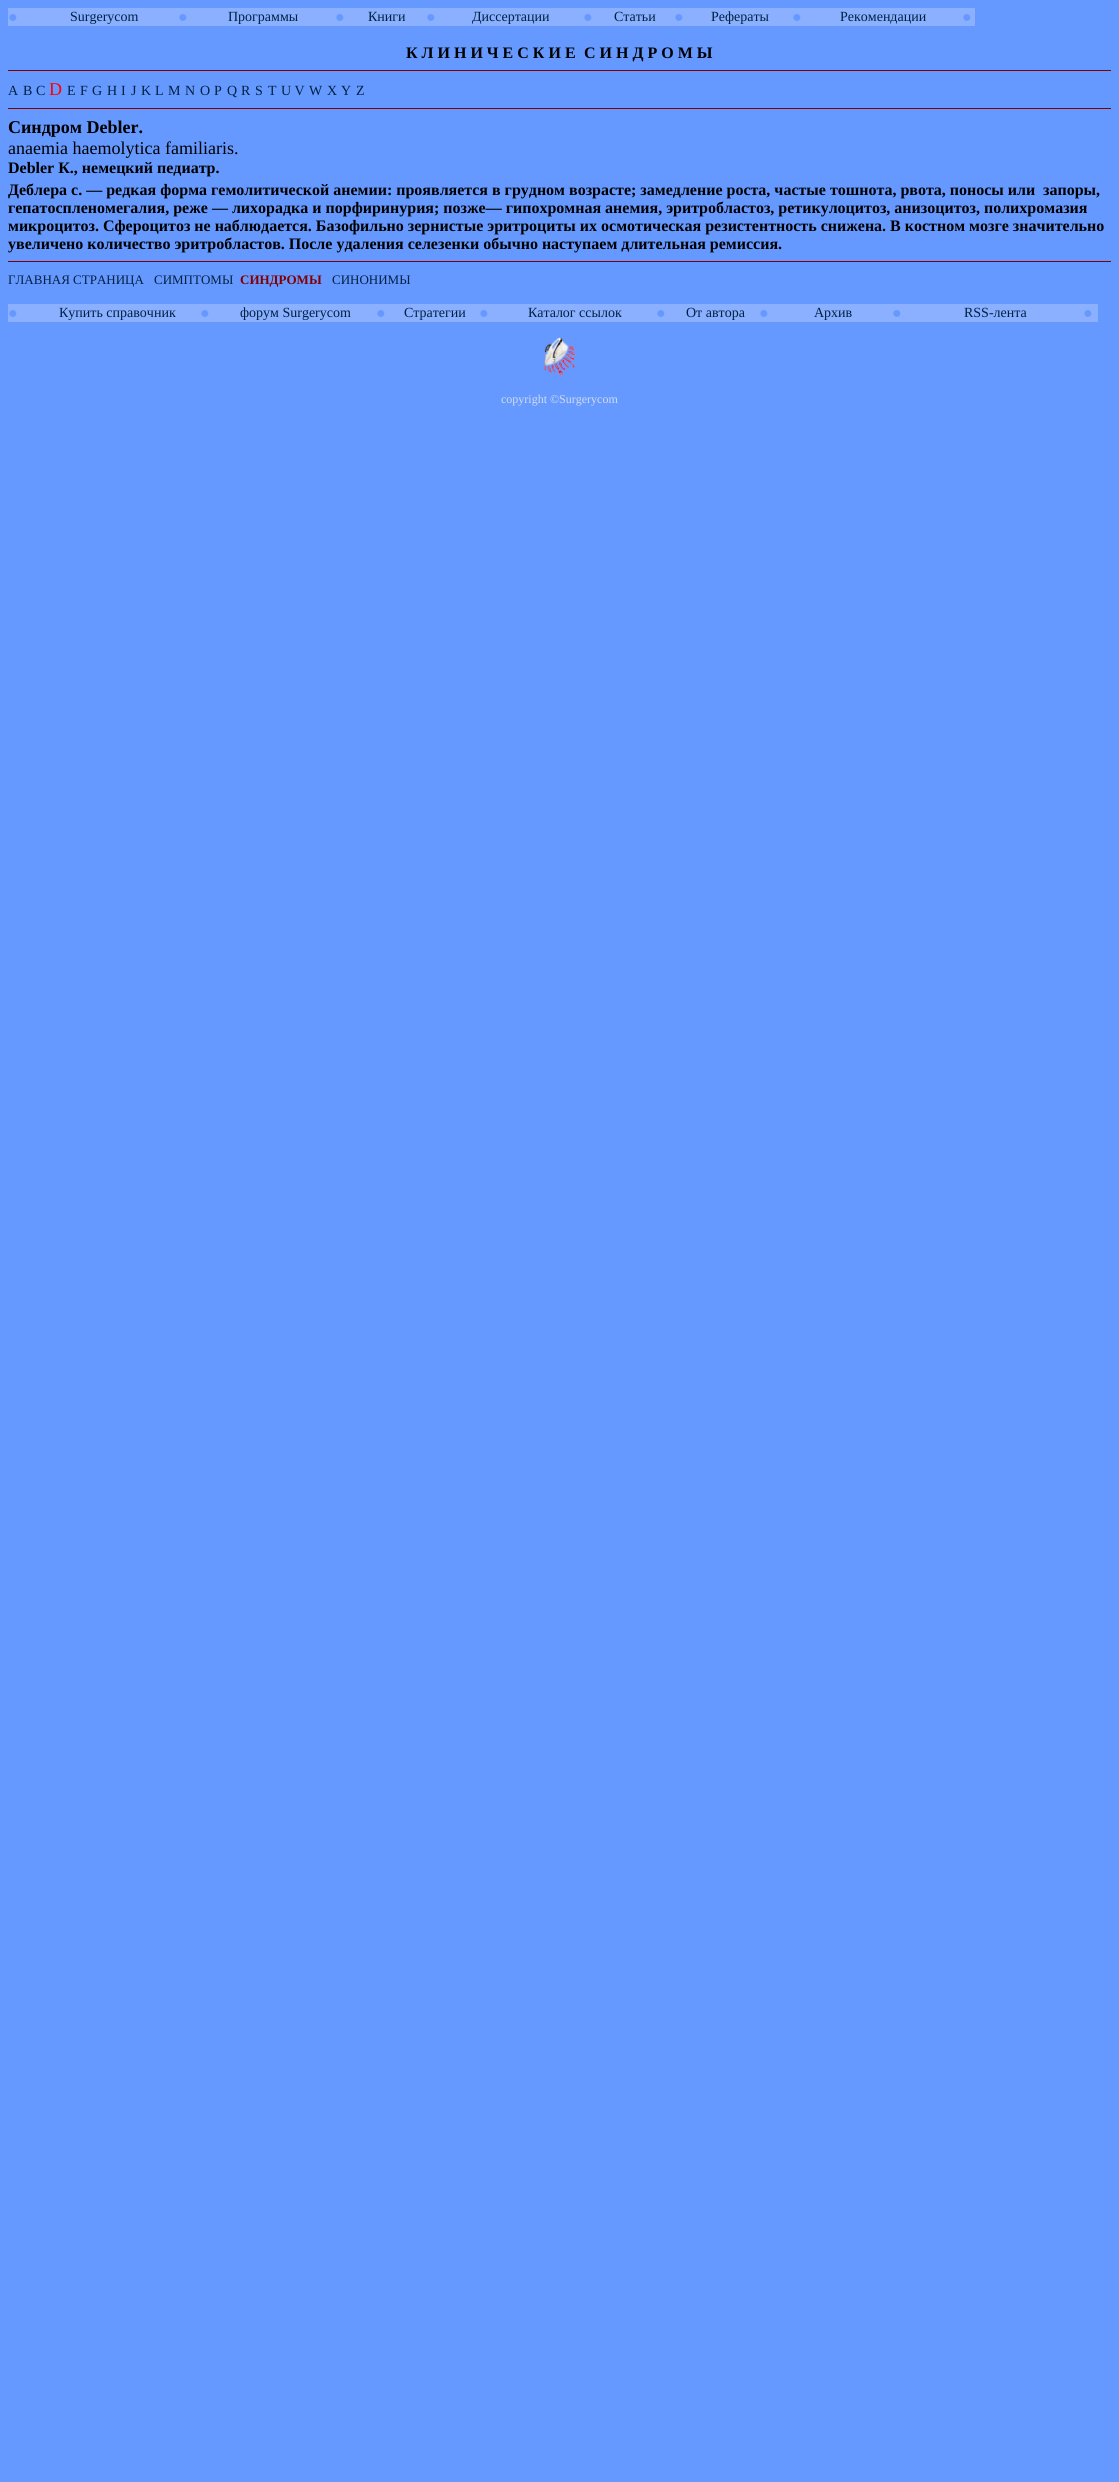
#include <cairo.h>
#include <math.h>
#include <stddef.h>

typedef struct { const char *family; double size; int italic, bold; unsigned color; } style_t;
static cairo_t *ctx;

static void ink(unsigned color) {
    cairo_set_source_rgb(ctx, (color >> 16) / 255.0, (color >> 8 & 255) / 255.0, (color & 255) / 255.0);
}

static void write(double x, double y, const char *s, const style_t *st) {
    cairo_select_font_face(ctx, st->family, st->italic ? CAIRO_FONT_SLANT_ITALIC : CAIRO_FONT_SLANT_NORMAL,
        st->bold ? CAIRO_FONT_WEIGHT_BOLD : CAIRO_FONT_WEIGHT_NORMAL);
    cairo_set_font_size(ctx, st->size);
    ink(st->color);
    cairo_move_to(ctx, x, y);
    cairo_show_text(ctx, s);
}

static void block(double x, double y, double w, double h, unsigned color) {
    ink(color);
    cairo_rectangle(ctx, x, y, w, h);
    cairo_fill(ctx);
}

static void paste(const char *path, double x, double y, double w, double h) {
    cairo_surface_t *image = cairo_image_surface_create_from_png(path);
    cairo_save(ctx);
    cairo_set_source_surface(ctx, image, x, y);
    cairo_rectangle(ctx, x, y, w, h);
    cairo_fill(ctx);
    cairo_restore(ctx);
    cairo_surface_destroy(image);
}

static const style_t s1 = {"Liberation Serif", 16, 0, 0, 0x6699ff};
static const style_t s2 = {"Liberation Serif", 14, 0, 0, 0x002142};
static const style_t s3 = {"Liberation Serif", 16, 0, 1, 0x000000};
static const style_t s4 = {"Liberation Serif", 18, 0, 0, 0xff0000};
static const style_t s5 = {"Liberation Serif", 18, 0, 1, 0x000000};
static const style_t s6 = {"Liberation Serif", 18, 0, 0, 0x000000};
static const style_t s7 = {"Liberation Serif", 13, 0, 0, 0x002142};
static const style_t s8 = {"Liberation Serif", 13, 0, 1, 0x800000};
static const style_t s9 = {"Liberation Serif", 12, 0, 0, 0xd1dceb};

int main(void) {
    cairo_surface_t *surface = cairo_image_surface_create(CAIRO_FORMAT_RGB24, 1119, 2482);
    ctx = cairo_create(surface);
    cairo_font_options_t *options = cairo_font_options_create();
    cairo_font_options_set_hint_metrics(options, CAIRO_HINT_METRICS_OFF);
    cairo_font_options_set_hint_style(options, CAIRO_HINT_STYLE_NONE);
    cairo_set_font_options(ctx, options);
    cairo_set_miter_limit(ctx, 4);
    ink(0x6699ff);
    cairo_paint(ctx);
    block(8, 8, 967, 18, 0x8ab0ff);
    write(8, 22, "●", &s1);
    write(70, 21, "Surgerycom", &s2);
    write(178, 22, "●", &s1);
    write(228, 21, "Программы", &s2);
    write(335, 22, "●", &s1);
    write(368, 21, "Книги", &s2);
    write(426, 22, "●", &s1);
    write(472, 21, "Диссертации", &s2);
    write(583, 22, "●", &s1);
    write(614, 21, "Статьи", &s2);
    write(674, 22, "●", &s1);
    write(711, 21, "Рефераты", &s2);
    write(792, 22, "●", &s1);
    write(840, 21, "Рекомендации", &s2);
    write(962, 22, "●", &s1);
    write(406, 58, "К Л И Н И Ч Е С К И Е", &s3);
    write(584, 58, "С И Н Д Р О М Ы", &s3);
    block(8, 70, 1103, 1, 0x800000);
    write(8, 95, "A", &s2);
    write(23, 95, "B", &s2);
    write(36, 95, "C", &s2);
    write(49, 95, "D", &s4);
    write(67, 95, "E", &s2);
    write(80, 95, "F", &s2);
    write(92, 95, "G", &s2);
    write(107, 95, "H", &s2);
    write(121, 95, "I", &s2);
    write(131, 95, "J", &s2);
    write(141, 95, "K", &s2);
    write(155, 95, "L", &s2);
    write(168, 95, "M", &s2);
    write(185, 95, "N", &s2);
    write(200, 95, "O", &s2);
    write(214, 95, "P", &s2);
    write(227, 95, "Q", &s2);
    write(241, 95, "R", &s2);
    write(255, 95, "S", &s2);
    write(268, 95, "T", &s2);
    write(281, 95, "U V", &s2);
    write(309, 95, "W", &s2);
    write(327, 95, "X", &s2);
    write(341, 95, "Y", &s2);
    write(356, 95, "Z", &s2);
    block(8, 108, 1103, 1, 0x800000);
    write(8, 133, "Синдром Debler.", &s5);
    write(8, 154, "anaemia haemolytica familiaris.", &s6);
    write(8, 173, "Debler К., немецкий педиатр.", &s3);
    write(8, 195, "Деблера с. — редкая форма гемолитической анемии: проявляется в грудном возрасте; замедление роста, частые тошнота, рвота, поносы или", &s3);
    write(1043, 195, "запоры,", &s3);
    write(8, 213, "гепатоспленомегалия, реже — лихорадка и порфиринурия; позже— гипохромная анемия, эритробластоз, ретикулоцитоз, анизоцитоз, полихромазия", &s3);
    write(8, 231, "микроцитоз. Сфероцитоз не наблюдается. Базофильно зернистые эритроциты их осмотическая резистентность снижена. В костном мозге значительно", &s3);
    write(8, 249, "увеличено количество эритробластов. После удаления селезенки обычно наступаем длительная ремиссия.", &s3);
    block(8, 261, 1103, 1, 0x800000);
    write(8, 284, "ГЛАВНАЯ СТРАНИЦА", &s7);
    write(154, 284, "СИМПТОМЫ", &s7);
    write(240, 284, "СИНДРОМЫ", &s8);
    write(332, 284, "СИНОНИМЫ", &s7);
    block(8, 304, 1090, 18, 0x8ab0ff);
    write(8, 318, "●", &s1);
    write(59, 317, "Купить справочник", &s2);
    write(200, 318, "●", &s1);
    write(240, 317, "форум Surgerycom", &s2);
    write(376, 318, "●", &s1);
    write(404, 317, "Стратегии", &s2);
    write(479, 318, "●", &s1);
    write(528, 317, "Каталог ссылок", &s2);
    write(656, 318, "●", &s1);
    write(686, 317, "От автора", &s2);
    write(759, 318, "●", &s1);
    write(814, 317, "Архив", &s2);
    write(892, 318, "●", &s1);
    write(964, 317, "RSS-лента", &s2);
    write(1083, 318, "●", &s1);
    paste("pic1.png", 544, 337, 32, 39);
    write(501, 403, "copyright ©Surgerycom", &s9);
    cairo_surface_write_to_png(surface, "screenshot.png");
    cairo_font_options_destroy(options);
    cairo_destroy(ctx);
    cairo_surface_destroy(surface);
    return 0;
}
